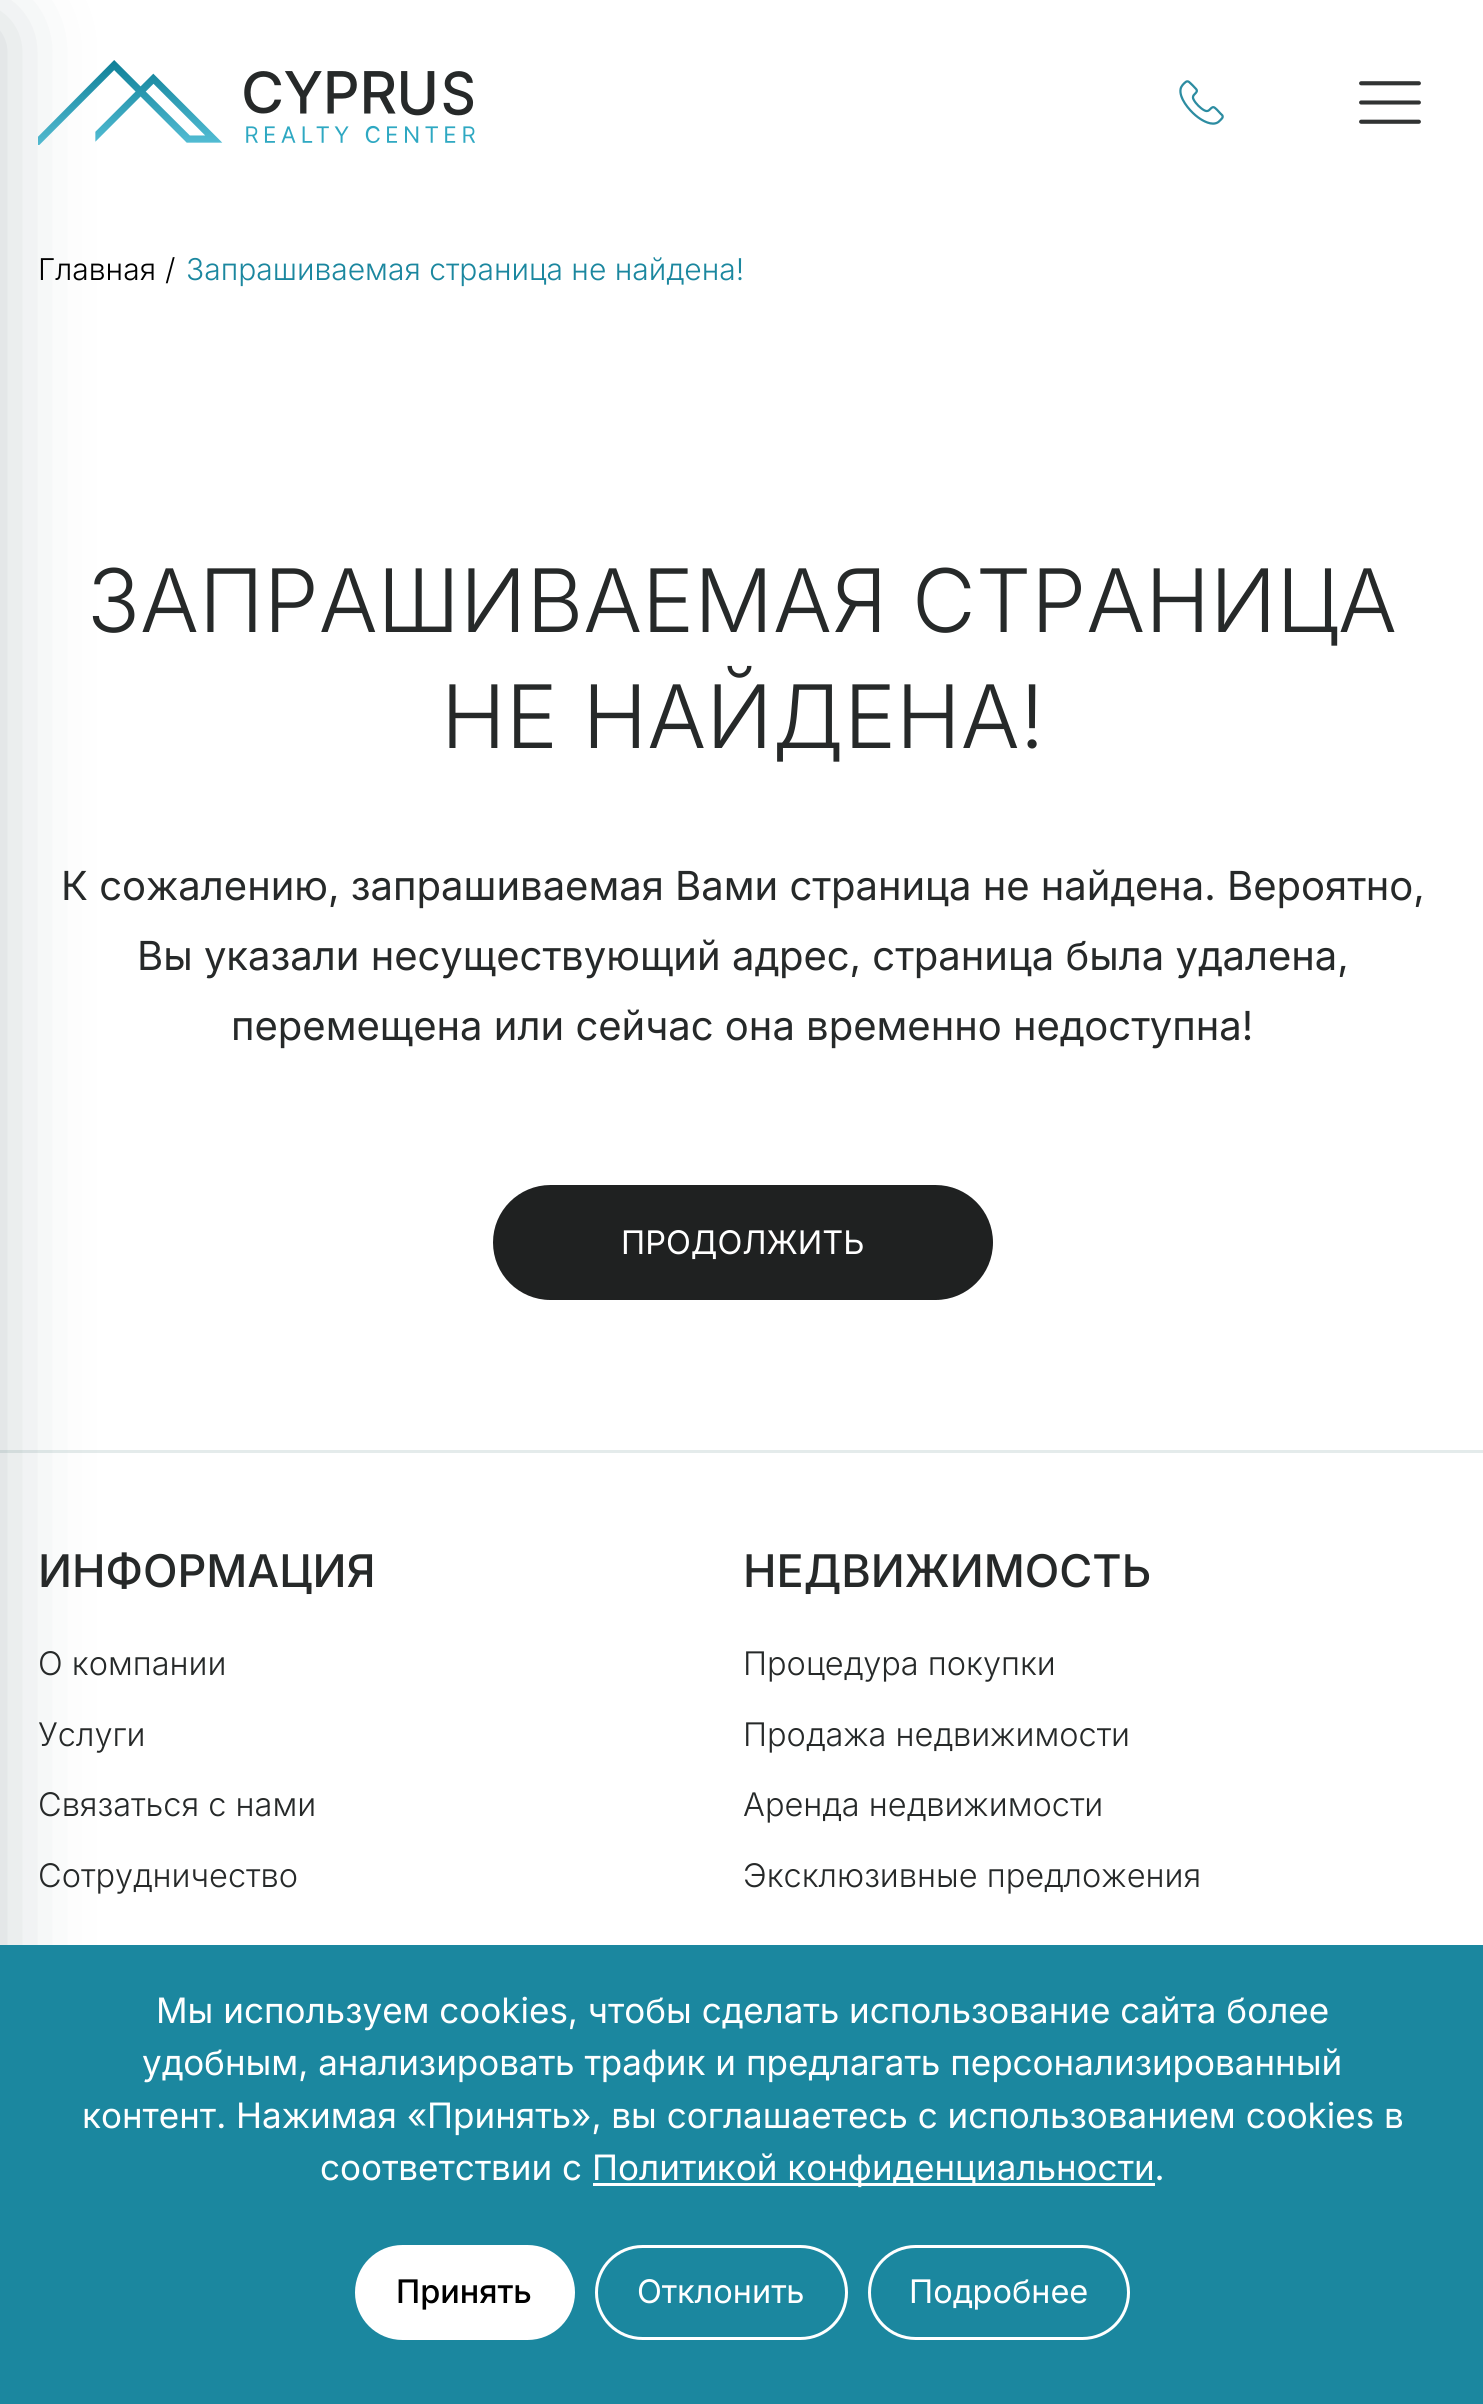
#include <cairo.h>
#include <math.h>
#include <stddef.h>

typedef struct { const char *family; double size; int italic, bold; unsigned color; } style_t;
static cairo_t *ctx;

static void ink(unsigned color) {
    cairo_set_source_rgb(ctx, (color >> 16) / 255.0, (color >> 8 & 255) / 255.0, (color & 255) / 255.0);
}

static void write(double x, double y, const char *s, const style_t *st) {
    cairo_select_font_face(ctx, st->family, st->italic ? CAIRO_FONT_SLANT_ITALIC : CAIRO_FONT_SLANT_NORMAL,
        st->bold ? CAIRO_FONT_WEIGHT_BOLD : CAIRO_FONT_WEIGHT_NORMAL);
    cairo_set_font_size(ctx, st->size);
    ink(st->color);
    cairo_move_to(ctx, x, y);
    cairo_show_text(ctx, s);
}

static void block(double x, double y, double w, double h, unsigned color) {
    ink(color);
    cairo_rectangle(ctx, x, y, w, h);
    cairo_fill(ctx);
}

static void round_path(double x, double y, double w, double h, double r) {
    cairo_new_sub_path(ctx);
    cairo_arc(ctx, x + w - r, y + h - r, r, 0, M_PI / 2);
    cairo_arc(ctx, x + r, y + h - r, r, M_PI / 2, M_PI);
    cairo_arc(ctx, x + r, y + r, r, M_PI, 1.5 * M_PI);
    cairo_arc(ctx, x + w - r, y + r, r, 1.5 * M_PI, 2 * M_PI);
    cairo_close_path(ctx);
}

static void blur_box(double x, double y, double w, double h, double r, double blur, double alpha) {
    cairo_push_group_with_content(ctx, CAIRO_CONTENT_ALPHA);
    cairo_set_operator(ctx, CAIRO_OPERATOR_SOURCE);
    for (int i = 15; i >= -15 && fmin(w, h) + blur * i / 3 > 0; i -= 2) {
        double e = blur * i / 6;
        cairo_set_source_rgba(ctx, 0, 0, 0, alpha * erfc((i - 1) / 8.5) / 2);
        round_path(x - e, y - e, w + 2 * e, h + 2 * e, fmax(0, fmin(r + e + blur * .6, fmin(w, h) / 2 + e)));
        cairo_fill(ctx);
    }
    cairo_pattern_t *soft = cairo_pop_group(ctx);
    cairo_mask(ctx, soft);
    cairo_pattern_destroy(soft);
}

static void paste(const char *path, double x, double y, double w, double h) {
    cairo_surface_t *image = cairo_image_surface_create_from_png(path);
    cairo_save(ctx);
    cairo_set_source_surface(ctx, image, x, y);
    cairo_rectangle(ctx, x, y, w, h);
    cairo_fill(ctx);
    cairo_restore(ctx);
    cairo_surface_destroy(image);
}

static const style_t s1 = {"Inter Light", 30, 0, 0, 0x000000};
static const style_t s2 = {"Inter Light", 30, 0, 0, 0x1b879f};
static const style_t s3 = {"Inter Light", 87.5, 0, 0, 0x262929};
static const style_t s4 = {"Inter", 40, 0, 0, 0x262929};
static const style_t s5 = {"Inter", 32.5, 0, 0, 0xffffff};
static const style_t s6 = {"Inter Medium", 45, 0, 0, 0x262929};
static const style_t s7 = {"Inter Light", 32.5, 0, 0, 0x262929};
static const style_t s8 = {"Inter", 35, 0, 0, 0xffffff};
static const style_t s9 = {"Inter Medium", 32.5, 0, 0, 0x000000};

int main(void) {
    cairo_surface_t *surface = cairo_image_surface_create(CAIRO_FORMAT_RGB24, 1483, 2404);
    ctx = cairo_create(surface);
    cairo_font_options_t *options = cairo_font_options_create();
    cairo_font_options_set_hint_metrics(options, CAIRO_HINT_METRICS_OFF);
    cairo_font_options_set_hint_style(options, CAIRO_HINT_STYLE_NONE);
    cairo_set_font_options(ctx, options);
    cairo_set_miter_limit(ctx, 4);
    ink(0xffffff);
    cairo_paint(ctx);
    paste("pic1.png", 38, 60, 437, 85);
    block(0, 1450, 1483, 3, 0xe4ebeb);
    ink(0x476167);
    blur_box(-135, 25, 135, 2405, 0, 45, 0.3);
    paste("pic2.png", 1179, 80, 45, 45);
    paste("pic3.png", 1359, 81, 62, 43);
    write(38, 280, "Главная", &s1);
    write(165, 280, "/", &s1);
    write(186, 280, "Запрашиваемая страница не найдена!", &s2);
    write(87, 632, "ЗАПРАШИВАЕМАЯ СТРАНИЦА", &s3);
    write(441, 748, "НЕ НАЙДЕНА!", &s3);
    write(61, 900, "К сожалению, запрашиваемая Вами страница не найдена. Вероятно,", &s4);
    write(137, 970, "Вы указали несуществующий адрес, страница была удалена,", &s4);
    write(231, 1040, "перемещена или сейчас она временно недоступна!", &s4);
    ink(0x1f2121);
    round_path(493, 1185, 500, 115, 57.5);
    cairo_fill(ctx);
    write(621, 1254, "ПРОДОЛЖИТЬ", &s5);
    write(38, 1587, "ИНФОРМАЦИЯ", &s6);
    write(38, 1675, "О компании", &s7);
    write(38, 1746, "Услуги", &s7);
    write(38, 1816, "Связаться с нами", &s7);
    write(38, 1887, "Сотрудничество", &s7);
    write(743, 1587, "НЕДВИЖИМОСТЬ", &s6);
    write(743, 1675, "Процедура покупки", &s7);
    write(743, 1746, "Продажа недвижимости", &s7);
    write(743, 1816, "Аренда недвижимости", &s7);
    write(743, 1887, "Эксклюзивные предложения", &s7);
    block(0, 1945, 1483, 459, 0x1b879f);
    write(156, 2023, "Мы используем cookies, чтобы сделать использование сайта более", &s8);
    write(142, 2075, "удобным, анализировать трафик и предлагать персонализированный", &s8);
    write(82, 2128, "контент. Нажимая «Принять», вы соглашаетесь с использованием cookies в", &s8);
    write(320, 2180, "соответствии с", &s8);
    block(593, 2183, 562, 3, 0xffffff);
    write(592, 2180, "Политикой конфиденциальности.", &s8);
    round_path(356.5, 2246.5, 217, 92, 46);
    cairo_fill_preserve(ctx);
    cairo_set_line_width(ctx, 3);
    cairo_stroke(ctx);
    write(396, 2303, "Принять", &s9);
    round_path(596.5, 2246.5, 250, 92, 46);
    ink(0xffffff);
    cairo_stroke(ctx);
    write(637, 2303, "Отклонить", &s5);
    round_path(869.5, 2246.5, 259, 92, 46);
    cairo_stroke(ctx);
    write(909, 2303, "Подробнее", &s5);
    cairo_surface_write_to_png(surface, "screenshot.png");
    cairo_font_options_destroy(options);
    cairo_destroy(ctx);
    cairo_surface_destroy(surface);
    return 0;
}
